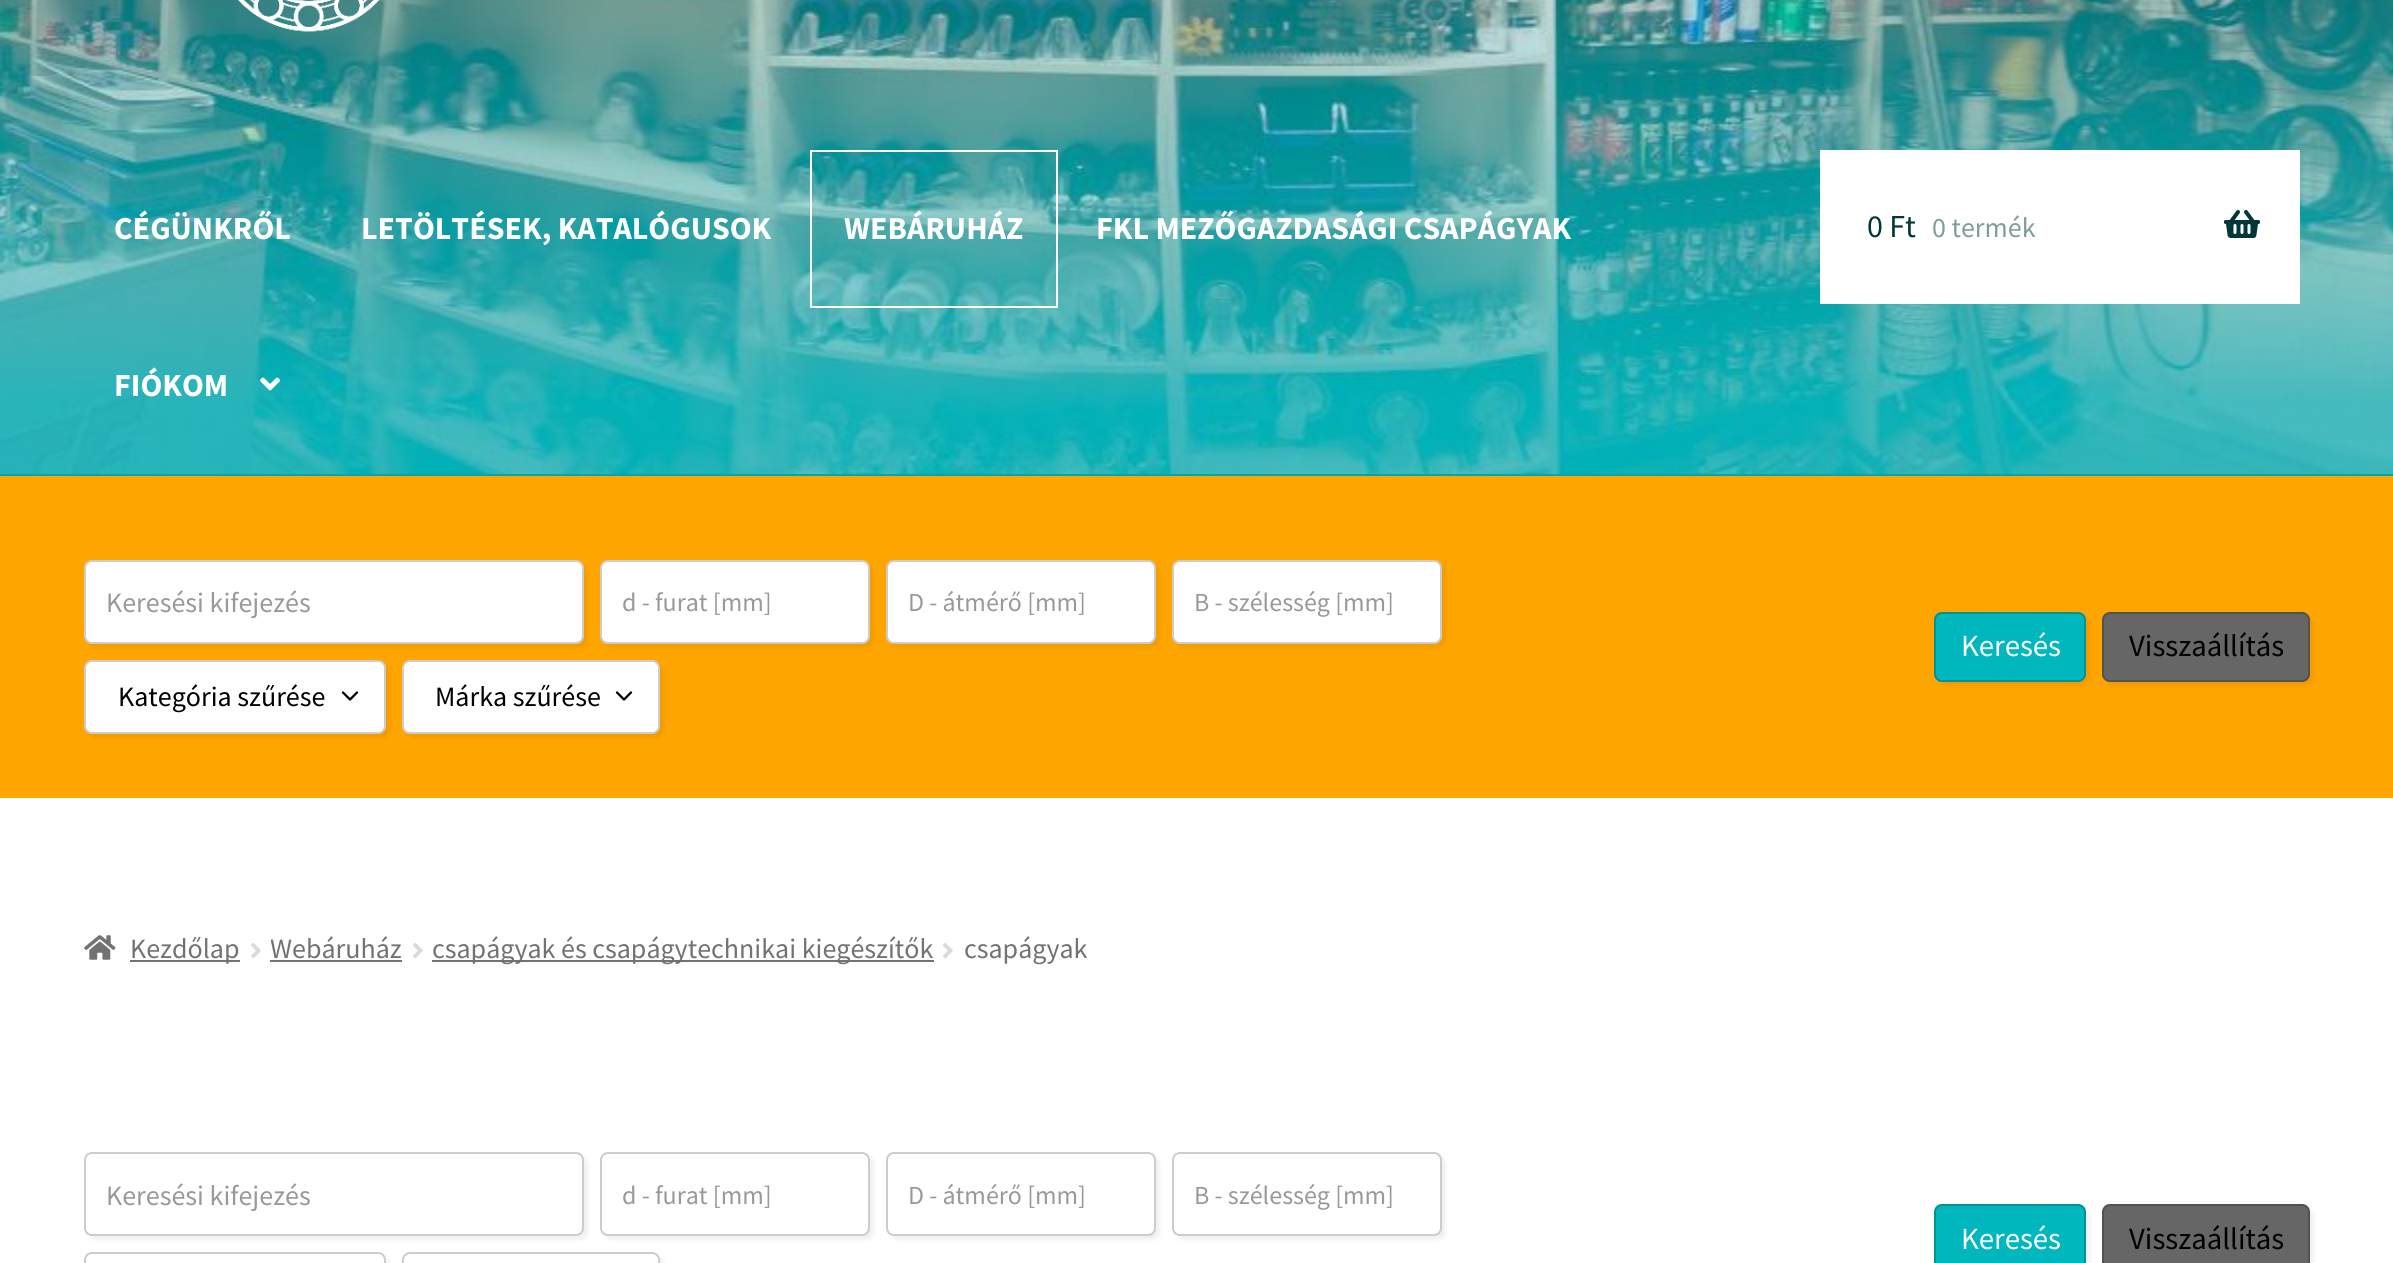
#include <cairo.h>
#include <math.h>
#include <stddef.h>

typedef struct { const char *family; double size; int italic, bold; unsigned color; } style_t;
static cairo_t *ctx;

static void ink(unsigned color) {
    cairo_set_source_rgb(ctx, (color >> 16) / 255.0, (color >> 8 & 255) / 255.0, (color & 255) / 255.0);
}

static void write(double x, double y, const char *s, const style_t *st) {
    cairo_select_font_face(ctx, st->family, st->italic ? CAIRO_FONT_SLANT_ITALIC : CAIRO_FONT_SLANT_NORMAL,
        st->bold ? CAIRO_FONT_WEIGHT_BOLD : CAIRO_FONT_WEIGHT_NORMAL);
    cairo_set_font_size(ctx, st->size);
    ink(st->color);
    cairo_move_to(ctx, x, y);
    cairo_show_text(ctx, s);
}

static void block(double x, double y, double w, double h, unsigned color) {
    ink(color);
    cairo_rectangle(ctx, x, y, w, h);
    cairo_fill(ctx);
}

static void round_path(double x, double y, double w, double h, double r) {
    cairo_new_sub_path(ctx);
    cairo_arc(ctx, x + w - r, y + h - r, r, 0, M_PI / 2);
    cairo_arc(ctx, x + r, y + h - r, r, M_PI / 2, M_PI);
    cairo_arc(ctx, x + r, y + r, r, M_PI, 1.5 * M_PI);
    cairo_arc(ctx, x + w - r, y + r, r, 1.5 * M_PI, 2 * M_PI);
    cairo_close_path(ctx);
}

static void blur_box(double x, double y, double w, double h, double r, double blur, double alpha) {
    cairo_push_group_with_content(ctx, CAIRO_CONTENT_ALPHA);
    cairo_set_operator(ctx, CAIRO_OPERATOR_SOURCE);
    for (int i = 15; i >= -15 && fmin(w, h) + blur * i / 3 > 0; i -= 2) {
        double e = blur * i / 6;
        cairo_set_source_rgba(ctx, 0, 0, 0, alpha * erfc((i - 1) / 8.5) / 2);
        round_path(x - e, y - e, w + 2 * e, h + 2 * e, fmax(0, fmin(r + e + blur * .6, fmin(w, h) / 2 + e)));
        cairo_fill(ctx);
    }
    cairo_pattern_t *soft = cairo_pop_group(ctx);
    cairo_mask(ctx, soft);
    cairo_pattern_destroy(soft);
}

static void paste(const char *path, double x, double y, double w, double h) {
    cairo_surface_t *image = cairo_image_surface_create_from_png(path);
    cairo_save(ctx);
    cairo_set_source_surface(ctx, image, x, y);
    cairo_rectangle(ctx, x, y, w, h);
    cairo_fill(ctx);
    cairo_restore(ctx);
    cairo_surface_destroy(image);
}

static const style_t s1 = {"Source Sans Pro", 32, 0, 1, 0xffffff};
static const style_t s2 = {"Source Sans Pro", 32, 0, 0, 0x00383a};
static const style_t s3 = {"Source Sans Pro", 28, 0, 0, 0x809c9d};
static const style_t s4 = {"Source Sans Pro", 28, 0, 0, 0x999999};
static const style_t s5 = {"Source Sans Pro", 26, 0, 0, 0x999999};
static const style_t s6 = {"Source Sans Pro", 28, 0, 0, 0x000000};
static const style_t s7 = {"Source Sans Pro", 30.75, 0, 0, 0xffffff};
static const style_t s8 = {"Source Sans Pro", 30.75, 0, 0, 0x000000};
static const style_t s9 = {"Source Sans Pro", 28, 0, 0, 0x727272};

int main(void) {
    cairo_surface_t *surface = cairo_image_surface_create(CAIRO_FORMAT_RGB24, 2393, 1263);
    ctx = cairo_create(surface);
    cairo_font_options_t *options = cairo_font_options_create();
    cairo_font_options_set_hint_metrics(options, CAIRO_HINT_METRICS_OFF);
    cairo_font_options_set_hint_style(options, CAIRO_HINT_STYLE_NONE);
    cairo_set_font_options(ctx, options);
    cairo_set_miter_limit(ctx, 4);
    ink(0xffffff);
    cairo_paint(ctx);
    paste("pic1.png", 0, 0, 2393, 474);
    block(0, 474, 2393, 2, 0x00a8ae);
    paste("pic2.png", 237, 0, 143, 32);
    write(114, 239, "CÉGÜNKRŐL", &s1);
    write(361, 239, "LETÖLTÉSEK, KATALÓGUSOK", &s1);
    cairo_rectangle(ctx, 811, 151, 246, 156);
    cairo_stroke(ctx);
    write(844, 239, "WEBÁRUHÁZ", &s1);
    write(1096, 239, "FKL MEZŐGAZDASÁGI CSAPÁGYAK", &s1);
    write(114, 396, "FIÓKOM", &s1);
    paste("pic3.png", 260, 377, 20, 14);
    block(1820, 150, 480, 154, 0xffffff);
    write(1867, 237, "0 Ft", &s2);
    write(1932, 237, "0 termék", &s3);
    paste("pic4.png", 2224, 210, 36, 28);
    block(0, 476, 2393, 322, 0xffa500);
    ink(0x000000);
    blur_box(88, 564, 500, 84, 8, 2, 0.06);
    ink(0xffffff);
    round_path(84, 560, 500, 84, 8);
    cairo_fill(ctx);
    round_path(85, 561, 498, 82, 7);
    cairo_set_source_rgba(ctx, 0, 0, 0, 0.2);
    cairo_stroke(ctx);
    write(106, 612, "Keresési kifejezés", &s4);
    ink(0x000000);
    blur_box(604, 564, 270, 84, 8, 2, 0.06);
    ink(0xffffff);
    round_path(600, 560, 270, 84, 8);
    cairo_fill(ctx);
    round_path(601, 561, 268, 82, 7);
    cairo_set_source_rgba(ctx, 0, 0, 0, 0.2);
    cairo_stroke(ctx);
    write(622, 611, "d - furat [mm]", &s5);
    ink(0x000000);
    blur_box(890, 564, 270, 84, 8, 2, 0.06);
    ink(0xffffff);
    round_path(886, 560, 270, 84, 8);
    cairo_fill(ctx);
    round_path(887, 561, 268, 82, 7);
    cairo_set_source_rgba(ctx, 0, 0, 0, 0.2);
    cairo_stroke(ctx);
    write(908, 611, "D - átmérő [mm]", &s5);
    ink(0x000000);
    blur_box(1176, 564, 270, 84, 8, 2, 0.06);
    ink(0xffffff);
    round_path(1172, 560, 270, 84, 8);
    cairo_fill(ctx);
    round_path(1173, 561, 268, 82, 7);
    cairo_set_source_rgba(ctx, 0, 0, 0, 0.2);
    cairo_stroke(ctx);
    write(1194, 611, "B - szélesség [mm]", &s5);
    ink(0x000000);
    blur_box(88, 664, 302, 74, 8, 2, 0.06);
    ink(0xffffff);
    round_path(84, 660, 302, 74, 8);
    cairo_fill(ctx);
    round_path(85, 661, 300, 72, 7);
    cairo_set_source_rgba(ctx, 0, 0, 0, 0.2);
    cairo_stroke(ctx);
    write(118, 706, "Kategória szűrése", &s6);
    cairo_new_path(ctx);
    cairo_move_to(ctx, 343, 692.5);
    cairo_line_to(ctx, 350, 699.5);
    cairo_line_to(ctx, 357, 692.5);
    cairo_set_line_width(ctx, 2.3);
    cairo_set_line_cap(ctx, CAIRO_LINE_CAP_ROUND);
    cairo_set_line_join(ctx, CAIRO_LINE_JOIN_ROUND);
    cairo_stroke(ctx);
    ink(0x000000);
    blur_box(406, 664, 258, 74, 8, 2, 0.06);
    ink(0xffffff);
    round_path(402, 660, 258, 74, 8);
    cairo_fill(ctx);
    round_path(403, 661, 256, 72, 7);
    cairo_set_source_rgba(ctx, 0, 0, 0, 0.2);
    cairo_set_line_width(ctx, 2);
    cairo_set_line_cap(ctx, CAIRO_LINE_CAP_BUTT);
    cairo_set_line_join(ctx, CAIRO_LINE_JOIN_MITER);
    cairo_stroke(ctx);
    write(435, 706, "Márka szűrése", &s6);
    cairo_new_path(ctx);
    cairo_move_to(ctx, 617, 692.5);
    cairo_line_to(ctx, 624, 699.5);
    cairo_line_to(ctx, 631, 692.5);
    cairo_set_line_width(ctx, 2.3);
    cairo_set_line_cap(ctx, CAIRO_LINE_CAP_ROUND);
    cairo_set_line_join(ctx, CAIRO_LINE_JOIN_ROUND);
    cairo_stroke(ctx);
    ink(0x000000);
    blur_box(1938, 616, 152, 70, 8, 2, 0.06);
    ink(0x00b7bd);
    round_path(1934, 612, 152, 70, 8);
    cairo_fill(ctx);
    round_path(1935, 613, 150, 68, 7);
    cairo_set_source_rgba(ctx, 0, 0, 0, 0.2);
    cairo_set_line_width(ctx, 2);
    cairo_set_line_cap(ctx, CAIRO_LINE_CAP_BUTT);
    cairo_set_line_join(ctx, CAIRO_LINE_JOIN_MITER);
    cairo_stroke(ctx);
    write(1961, 656, "Keresés", &s7);
    ink(0x000000);
    blur_box(2106, 616, 208, 70, 8, 2, 0.06);
    ink(0x666666);
    round_path(2102, 612, 208, 70, 8);
    cairo_fill(ctx);
    round_path(2103, 613, 206, 68, 7);
    cairo_set_source_rgba(ctx, 0, 0, 0, 0.2);
    cairo_stroke(ctx);
    write(2129, 656, "Visszaállítás", &s8);
    paste("pic5.png", 84, 935, 32, 25);
    block(130, 960, 110, 2, 0x727272);
    write(130, 958, "Kezdőlap", &s9);
    paste("pic6.png", 251, 943, 10, 16);
    write(270, 958, "Webáruház", &s9);
    block(270, 960, 132, 2, 0x727272);
    paste("pic6.png", 413, 943, 10, 16);
    block(432, 960, 502, 2, 0x727272);
    write(432, 958, "csapágyak és csapágytechnikai kiegészítők", &s9);
    paste("pic6.png", 943, 943, 10, 16);
    write(964, 958, "csapágyak", &s9);
    ink(0x000000);
    blur_box(88, 1156, 500, 84, 8, 2, 0.06);
    ink(0xffffff);
    round_path(84, 1152, 500, 84, 8);
    cairo_fill(ctx);
    round_path(85, 1153, 498, 82, 7);
    cairo_set_source_rgba(ctx, 0, 0, 0, 0.2);
    cairo_stroke(ctx);
    write(106, 1205, "Keresési kifejezés", &s4);
    ink(0x000000);
    blur_box(604, 1156, 270, 84, 8, 2, 0.06);
    ink(0xffffff);
    round_path(600, 1152, 270, 84, 8);
    cairo_fill(ctx);
    round_path(601, 1153, 268, 82, 7);
    cairo_set_source_rgba(ctx, 0, 0, 0, 0.2);
    cairo_stroke(ctx);
    write(622, 1204, "d - furat [mm]", &s5);
    ink(0x000000);
    blur_box(890, 1156, 270, 84, 8, 2, 0.06);
    ink(0xffffff);
    round_path(886, 1152, 270, 84, 8);
    cairo_fill(ctx);
    round_path(887, 1153, 268, 82, 7);
    cairo_set_source_rgba(ctx, 0, 0, 0, 0.2);
    cairo_stroke(ctx);
    write(908, 1204, "D - átmérő [mm]", &s5);
    ink(0x000000);
    blur_box(1176, 1156, 270, 84, 8, 2, 0.06);
    ink(0xffffff);
    round_path(1172, 1152, 270, 84, 8);
    cairo_fill(ctx);
    round_path(1173, 1153, 268, 82, 7);
    cairo_set_source_rgba(ctx, 0, 0, 0, 0.2);
    cairo_stroke(ctx);
    write(1194, 1204, "B - szélesség [mm]", &s5);
    ink(0x000000);
    blur_box(88, 1256, 302, 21, 8, 2, 0.06);
    ink(0xffffff);
    round_path(85, 1253, 300, 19, 7);
    cairo_fill_preserve(ctx);
    ink(0xcccccc);
    cairo_stroke(ctx);
    ink(0x000000);
    blur_box(406, 1256, 258, 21, 8, 2, 0.06);
    ink(0xffffff);
    round_path(403, 1253, 256, 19, 7);
    cairo_fill_preserve(ctx);
    ink(0xcccccc);
    cairo_stroke(ctx);
    ink(0x000000);
    blur_box(1938, 1208, 152, 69, 8, 2, 0.06);
    ink(0x00b7bd);
    round_path(1934, 1204, 152, 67, 8);
    cairo_fill(ctx);
    round_path(1935, 1205, 150, 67, 7);
    cairo_set_source_rgba(ctx, 0, 0, 0, 0.2);
    cairo_stroke(ctx);
    write(1961, 1249, "Keresés", &s7);
    ink(0x000000);
    blur_box(2106, 1208, 208, 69, 8, 2, 0.06);
    ink(0x666666);
    round_path(2102, 1204, 208, 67, 8);
    cairo_fill(ctx);
    round_path(2103, 1205, 206, 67, 7);
    cairo_set_source_rgba(ctx, 0, 0, 0, 0.2);
    cairo_stroke(ctx);
    write(2129, 1249, "Visszaállítás", &s8);
    cairo_surface_write_to_png(surface, "screenshot.png");
    cairo_font_options_destroy(options);
    cairo_destroy(ctx);
    cairo_surface_destroy(surface);
    return 0;
}
